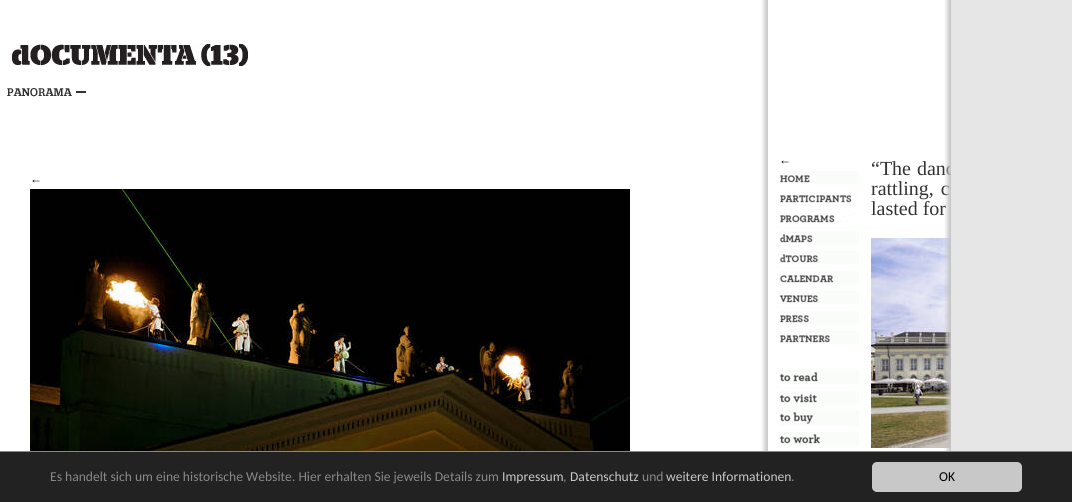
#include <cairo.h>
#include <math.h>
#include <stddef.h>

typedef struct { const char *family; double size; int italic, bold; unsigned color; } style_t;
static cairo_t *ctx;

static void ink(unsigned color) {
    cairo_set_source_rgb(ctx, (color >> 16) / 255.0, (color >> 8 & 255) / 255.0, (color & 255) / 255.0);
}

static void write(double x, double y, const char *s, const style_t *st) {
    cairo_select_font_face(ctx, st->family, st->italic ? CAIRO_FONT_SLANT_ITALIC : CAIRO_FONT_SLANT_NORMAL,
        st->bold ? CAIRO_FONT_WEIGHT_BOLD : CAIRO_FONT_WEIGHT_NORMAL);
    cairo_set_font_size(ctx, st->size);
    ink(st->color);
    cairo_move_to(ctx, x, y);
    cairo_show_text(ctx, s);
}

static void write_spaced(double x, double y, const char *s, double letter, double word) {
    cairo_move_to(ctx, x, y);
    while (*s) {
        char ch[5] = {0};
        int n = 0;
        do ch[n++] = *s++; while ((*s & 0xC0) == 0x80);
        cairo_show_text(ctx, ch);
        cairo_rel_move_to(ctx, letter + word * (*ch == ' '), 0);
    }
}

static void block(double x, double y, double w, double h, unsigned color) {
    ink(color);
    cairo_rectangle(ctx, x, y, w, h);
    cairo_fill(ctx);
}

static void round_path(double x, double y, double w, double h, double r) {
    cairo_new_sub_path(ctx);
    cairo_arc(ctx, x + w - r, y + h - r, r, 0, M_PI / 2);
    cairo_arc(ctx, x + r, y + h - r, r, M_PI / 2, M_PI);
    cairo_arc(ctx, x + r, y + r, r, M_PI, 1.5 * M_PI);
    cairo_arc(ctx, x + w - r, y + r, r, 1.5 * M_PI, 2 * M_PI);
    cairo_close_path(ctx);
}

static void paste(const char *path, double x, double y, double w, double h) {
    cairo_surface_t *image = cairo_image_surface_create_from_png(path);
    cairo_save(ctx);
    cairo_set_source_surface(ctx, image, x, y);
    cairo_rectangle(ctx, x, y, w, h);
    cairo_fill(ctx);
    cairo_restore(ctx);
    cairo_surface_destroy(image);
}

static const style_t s1 = {"Liberation Serif", 12, 0, 0, 0x000000};
static const style_t s2 = {"Liberation Serif", 20, 0, 0, 0x333333};
static const style_t s3 = {"Carlito", 13.6, 0, 0, 0x888888};
static const style_t s4 = {"Carlito", 13.6, 0, 0, 0xc8c8c8};
static const style_t s5 = {"Carlito", 13.6, 0, 0, 0x000000};

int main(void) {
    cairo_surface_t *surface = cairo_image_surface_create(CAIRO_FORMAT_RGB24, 1072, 502);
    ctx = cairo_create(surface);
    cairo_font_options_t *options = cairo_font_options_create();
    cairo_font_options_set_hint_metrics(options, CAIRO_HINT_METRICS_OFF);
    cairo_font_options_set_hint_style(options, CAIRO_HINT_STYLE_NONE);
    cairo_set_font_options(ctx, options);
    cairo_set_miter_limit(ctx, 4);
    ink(0xffffff);
    cairo_paint(ctx);
    paste("pic1.png", 12, 43, 237, 24);
    paste("pic2.png", 7, 88, 79, 9);
    write(30, 183, "←", &s1);
    paste("pic3.png", 30, 189, 600, 262);
    paste("pic4.png", 761, 0, 7, 451);
    write(779, 164, "←", &s1);
    paste("pic5.png", 779, 171, 80, 13);
    paste("pic6.png", 780, 191, 78, 12);
    paste("pic7.png", 779, 211, 77, 12);
    paste("pic8.png", 779, 231, 80, 13);
    paste("pic9.png", 779, 251, 80, 13);
    paste("pic10.png", 779, 271, 80, 13);
    paste("pic11.png", 779, 291, 80, 13);
    paste("pic12.png", 779, 311, 80, 13);
    paste("pic13.png", 779, 331, 80, 13);
    paste("pic14.png", 779, 370, 80, 14);
    paste("pic15.png", 779, 391, 80, 13);
    paste("pic16.png", 779, 410, 80, 16);
    paste("pic17.png", 779, 432, 80, 14);
    cairo_set_font_size(ctx, 20);
    ink(0x333333);
    write_spaced(871, 175, "“The danc", 0, 1);
    write_spaced(871, 195, "rattling, c", 0, 2);
    write(871, 215, "lasted for", &s2);
    paste("pic18.png", 871, 238, 80, 210);
    paste("pic19.png", 944, 0, 128, 451);
    block(0, 452, 1072, 50, 0x222222);
    block(0, 451, 1072, 1, 0x888888);
    write(50, 481, "Es handelt sich um eine historische Website. Hier erhalten Sie jeweils Details zum", &s3);
    write(502, 481, "Impressum", &s4);
    write(563, 481, ",", &s3);
    write(570, 481, "Datenschutz", &s4);
    write(642, 481, "und", &s3);
    write(666, 481, "weitere Informationen", &s4);
    write(791, 481, ".", &s3);
    ink(0xc8c8c8);
    round_path(872, 462, 150, 30, 5);
    cairo_fill(ctx);
    write(939, 481, "OK", &s5);
    cairo_surface_write_to_png(surface, "screenshot.png");
    cairo_font_options_destroy(options);
    cairo_destroy(ctx);
    cairo_surface_destroy(surface);
    return 0;
}
